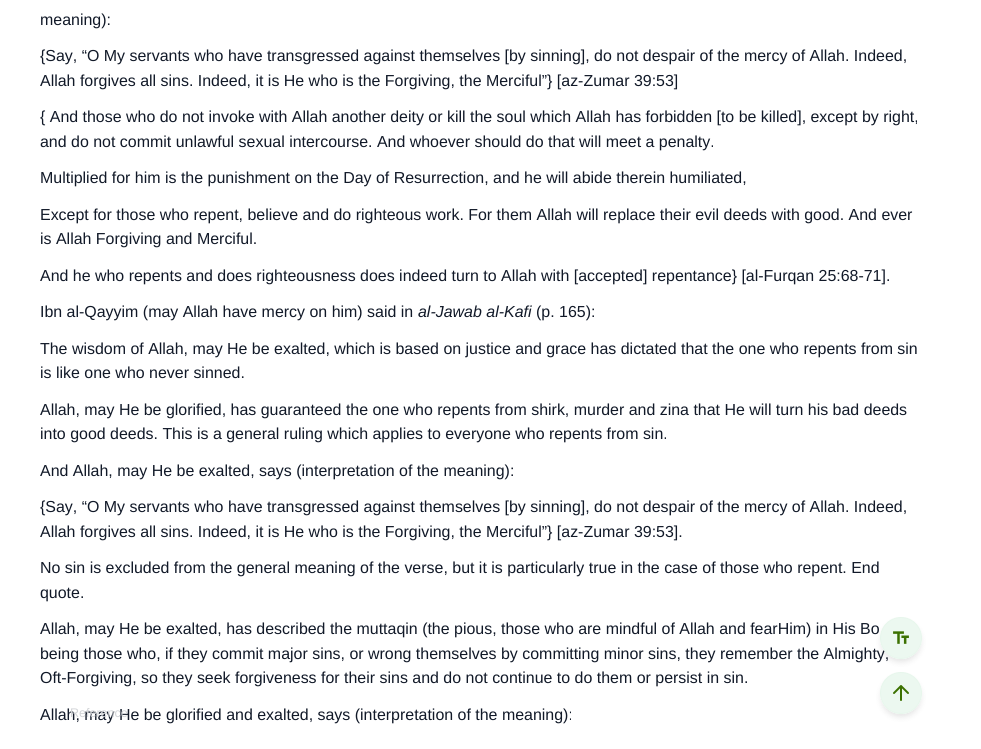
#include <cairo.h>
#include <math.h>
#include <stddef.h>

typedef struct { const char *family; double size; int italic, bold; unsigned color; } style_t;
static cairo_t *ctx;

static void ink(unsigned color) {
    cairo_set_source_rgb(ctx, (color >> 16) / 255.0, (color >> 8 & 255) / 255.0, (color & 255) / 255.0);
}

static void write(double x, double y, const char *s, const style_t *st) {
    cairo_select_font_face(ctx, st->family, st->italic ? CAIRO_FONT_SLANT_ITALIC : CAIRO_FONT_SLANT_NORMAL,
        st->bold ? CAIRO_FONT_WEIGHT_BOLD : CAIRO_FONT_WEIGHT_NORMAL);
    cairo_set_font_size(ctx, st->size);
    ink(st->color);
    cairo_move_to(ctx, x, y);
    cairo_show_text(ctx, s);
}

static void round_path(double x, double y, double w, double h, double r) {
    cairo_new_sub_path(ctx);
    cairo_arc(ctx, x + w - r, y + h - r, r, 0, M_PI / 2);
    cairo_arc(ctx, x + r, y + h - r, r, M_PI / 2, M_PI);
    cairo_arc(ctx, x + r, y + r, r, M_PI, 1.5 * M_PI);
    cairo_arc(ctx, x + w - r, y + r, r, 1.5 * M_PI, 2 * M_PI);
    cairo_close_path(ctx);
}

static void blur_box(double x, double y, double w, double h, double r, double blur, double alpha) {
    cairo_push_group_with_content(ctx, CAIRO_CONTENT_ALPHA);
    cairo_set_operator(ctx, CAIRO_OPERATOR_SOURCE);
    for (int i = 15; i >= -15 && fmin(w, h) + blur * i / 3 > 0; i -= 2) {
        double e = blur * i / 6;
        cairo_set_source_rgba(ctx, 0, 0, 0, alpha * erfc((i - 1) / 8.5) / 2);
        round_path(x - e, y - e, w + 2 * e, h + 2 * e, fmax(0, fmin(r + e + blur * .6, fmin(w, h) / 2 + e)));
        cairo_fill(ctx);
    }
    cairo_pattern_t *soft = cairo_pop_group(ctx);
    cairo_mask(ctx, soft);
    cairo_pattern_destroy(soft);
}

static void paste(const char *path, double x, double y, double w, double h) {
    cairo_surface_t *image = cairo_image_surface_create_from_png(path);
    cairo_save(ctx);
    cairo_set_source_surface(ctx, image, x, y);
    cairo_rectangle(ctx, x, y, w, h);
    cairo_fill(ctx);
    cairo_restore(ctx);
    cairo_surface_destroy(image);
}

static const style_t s1 = {"Liberation Sans", 15.95, 0, 0, 0x111928};
static const style_t s2 = {"Liberation Sans", 15.95, 1, 0, 0x111928};
static const style_t s3 = {"Liberation Sans", 12.5, 0, 0, 0xd2d4d7};

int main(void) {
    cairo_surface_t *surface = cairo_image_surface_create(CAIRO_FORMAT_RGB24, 981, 749);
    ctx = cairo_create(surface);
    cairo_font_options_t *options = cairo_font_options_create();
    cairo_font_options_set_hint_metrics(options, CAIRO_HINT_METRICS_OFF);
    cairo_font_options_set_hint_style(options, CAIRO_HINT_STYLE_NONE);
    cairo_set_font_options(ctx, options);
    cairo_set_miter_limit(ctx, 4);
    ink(0xffffff);
    cairo_paint(ctx);
    write(40, 25, "meaning):", &s1);
    write(40, 61, "{Say, “O My servants who have transgressed against themselves [by sinning], do not despair of the mercy of Allah. Indeed,", &s1);
    write(40, 86, "Allah forgives all sins. Indeed, it is He who is the Forgiving, the Merciful”} [az-Zumar 39:53]", &s1);
    write(40, 122, "{ And those who do not invoke with Allah another deity or kill the soul which Allah has forbidden [to be killed], except by right,", &s1);
    write(40, 147, "and do not commit unlawful sexual intercourse. And whoever should do that will meet a penalty.", &s1);
    write(40, 183, "Multiplied for him is the punishment on the Day of Resurrection, and he will abide therein humiliated,", &s1);
    write(40, 220, "Except for those who repent, believe and do righteous work. For them Allah will replace their evil deeds with good. And ever", &s1);
    write(40, 244, "is Allah Forgiving and Merciful.", &s1);
    write(40, 281, "And he who repents and does righteousness does indeed turn to Allah with [accepted] repentance} [al-Furqan 25:68-71].", &s1);
    write(40, 317, "Ibn al-Qayyim (may Allah have mercy on him) said in", &s1);
    write(418, 317, "al-Jawab al-Kafi", &s2);
    write(536, 317, "(p. 165):", &s1);
    write(40, 354, "The wisdom of Allah, may He be exalted, which is based on justice and grace has dictated that the one who repents from sin", &s1);
    write(40, 378, "is like one who never sinned.", &s1);
    write(40, 415, "Allah, may He be glorified, has guaranteed the one who repents from shirk, murder and zina that He will turn his bad deeds", &s1);
    write(40, 439, "into good deeds. This is a general ruling which applies to everyone who repents from sin.", &s1);
    write(40, 476, "And Allah, may He be exalted, says (interpretation of the meaning):", &s1);
    write(40, 512, "{Say, “O My servants who have transgressed against themselves [by sinning], do not despair of the mercy of Allah. Indeed,", &s1);
    write(40, 537, "Allah forgives all sins. Indeed, it is He who is the Forgiving, the Merciful”} [az-Zumar 39:53].", &s1);
    write(40, 573, "No sin is excluded from the general meaning of the verse, but it is particularly true in the case of those who repent. End", &s1);
    write(40, 598, "quote.", &s1);
    write(40, 634, "Allah, may He be exalted, has described the muttaqin (the pious, those who are mindful of Allah and fearHim) in His Bo", &s1);
    write(40, 659, "being those who, if they commit major sins, or wrong themselves by committing minor sins, they remember the Almighty,", &s1);
    write(40, 683, "Oft-Forgiving, so they seek forgiveness for their sins and do not continue to do them or persist in sin.", &s1);
    write(40, 720, "Allah, may He be glorified and exalted, says (interpretation of the meaning):", &s1);
    write(70, 717, "Reference", &s3);
    cairo_save(ctx);
    cairo_set_fill_rule(ctx, CAIRO_FILL_RULE_EVEN_ODD);
    cairo_new_path(ctx);
    cairo_move_to(ctx, 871, 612);
    cairo_line_to(ctx, 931, 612);
    cairo_line_to(ctx, 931, 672);
    cairo_line_to(ctx, 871, 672);
    cairo_close_path(ctx);
    cairo_move_to(ctx, 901, 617);
    cairo_curve_to(ctx, 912.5, 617, 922, 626.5, 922, 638);
    cairo_curve_to(ctx, 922, 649.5, 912.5, 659, 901, 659);
    cairo_curve_to(ctx, 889.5, 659, 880, 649.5, 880, 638);
    cairo_curve_to(ctx, 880, 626.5, 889.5, 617, 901, 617);
    cairo_close_path(ctx);
    cairo_clip(ctx);
    ink(0x000000);
    blur_box(881, 622, 40, 40, 20, 3, 0.1);
    cairo_restore(ctx);
    cairo_set_source_rgba(ctx, 0.906, 0.965, 0.925, 0.8);
    cairo_arc(ctx, 901, 638, 20.5, 0, 2 * M_PI);
    cairo_fill_preserve(ctx);
    ink(0xe7f6ec);
    cairo_set_line_width(ctx, 1);
    cairo_stroke(ctx);
    paste("pic1.png", 893, 631, 16, 13);
    cairo_save(ctx);
    cairo_set_fill_rule(ctx, CAIRO_FILL_RULE_EVEN_ODD);
    cairo_new_path(ctx);
    cairo_move_to(ctx, 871, 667);
    cairo_line_to(ctx, 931, 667);
    cairo_line_to(ctx, 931, 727);
    cairo_line_to(ctx, 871, 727);
    cairo_close_path(ctx);
    cairo_move_to(ctx, 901, 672);
    cairo_curve_to(ctx, 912.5, 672, 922, 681.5, 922, 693);
    cairo_curve_to(ctx, 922, 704.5, 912.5, 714, 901, 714);
    cairo_curve_to(ctx, 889.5, 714, 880, 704.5, 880, 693);
    cairo_curve_to(ctx, 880, 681.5, 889.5, 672, 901, 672);
    cairo_close_path(ctx);
    cairo_clip(ctx);
    ink(0x000000);
    blur_box(881, 677, 40, 40, 20, 3, 0.1);
    cairo_restore(ctx);
    cairo_set_source_rgba(ctx, 0.906, 0.965, 0.925, 0.8);
    cairo_arc(ctx, 901, 693, 20.5, 0, 2 * M_PI);
    cairo_fill_preserve(ctx);
    ink(0xe7f6ec);
    cairo_stroke(ctx);
    cairo_new_path(ctx);
    cairo_move_to(ctx, 894, 693);
    cairo_line_to(ctx, 901, 686);
    cairo_line_to(ctx, 908, 693);
    cairo_move_to(ctx, 901, 700);
    cairo_line_to(ctx, 901, 686);
    ink(0x3c7101);
    cairo_set_line_width(ctx, 2);
    cairo_set_line_cap(ctx, CAIRO_LINE_CAP_ROUND);
    cairo_set_line_join(ctx, CAIRO_LINE_JOIN_ROUND);
    cairo_stroke(ctx);
    cairo_surface_write_to_png(surface, "screenshot.png");
    cairo_font_options_destroy(options);
    cairo_destroy(ctx);
    cairo_surface_destroy(surface);
    return 0;
}
